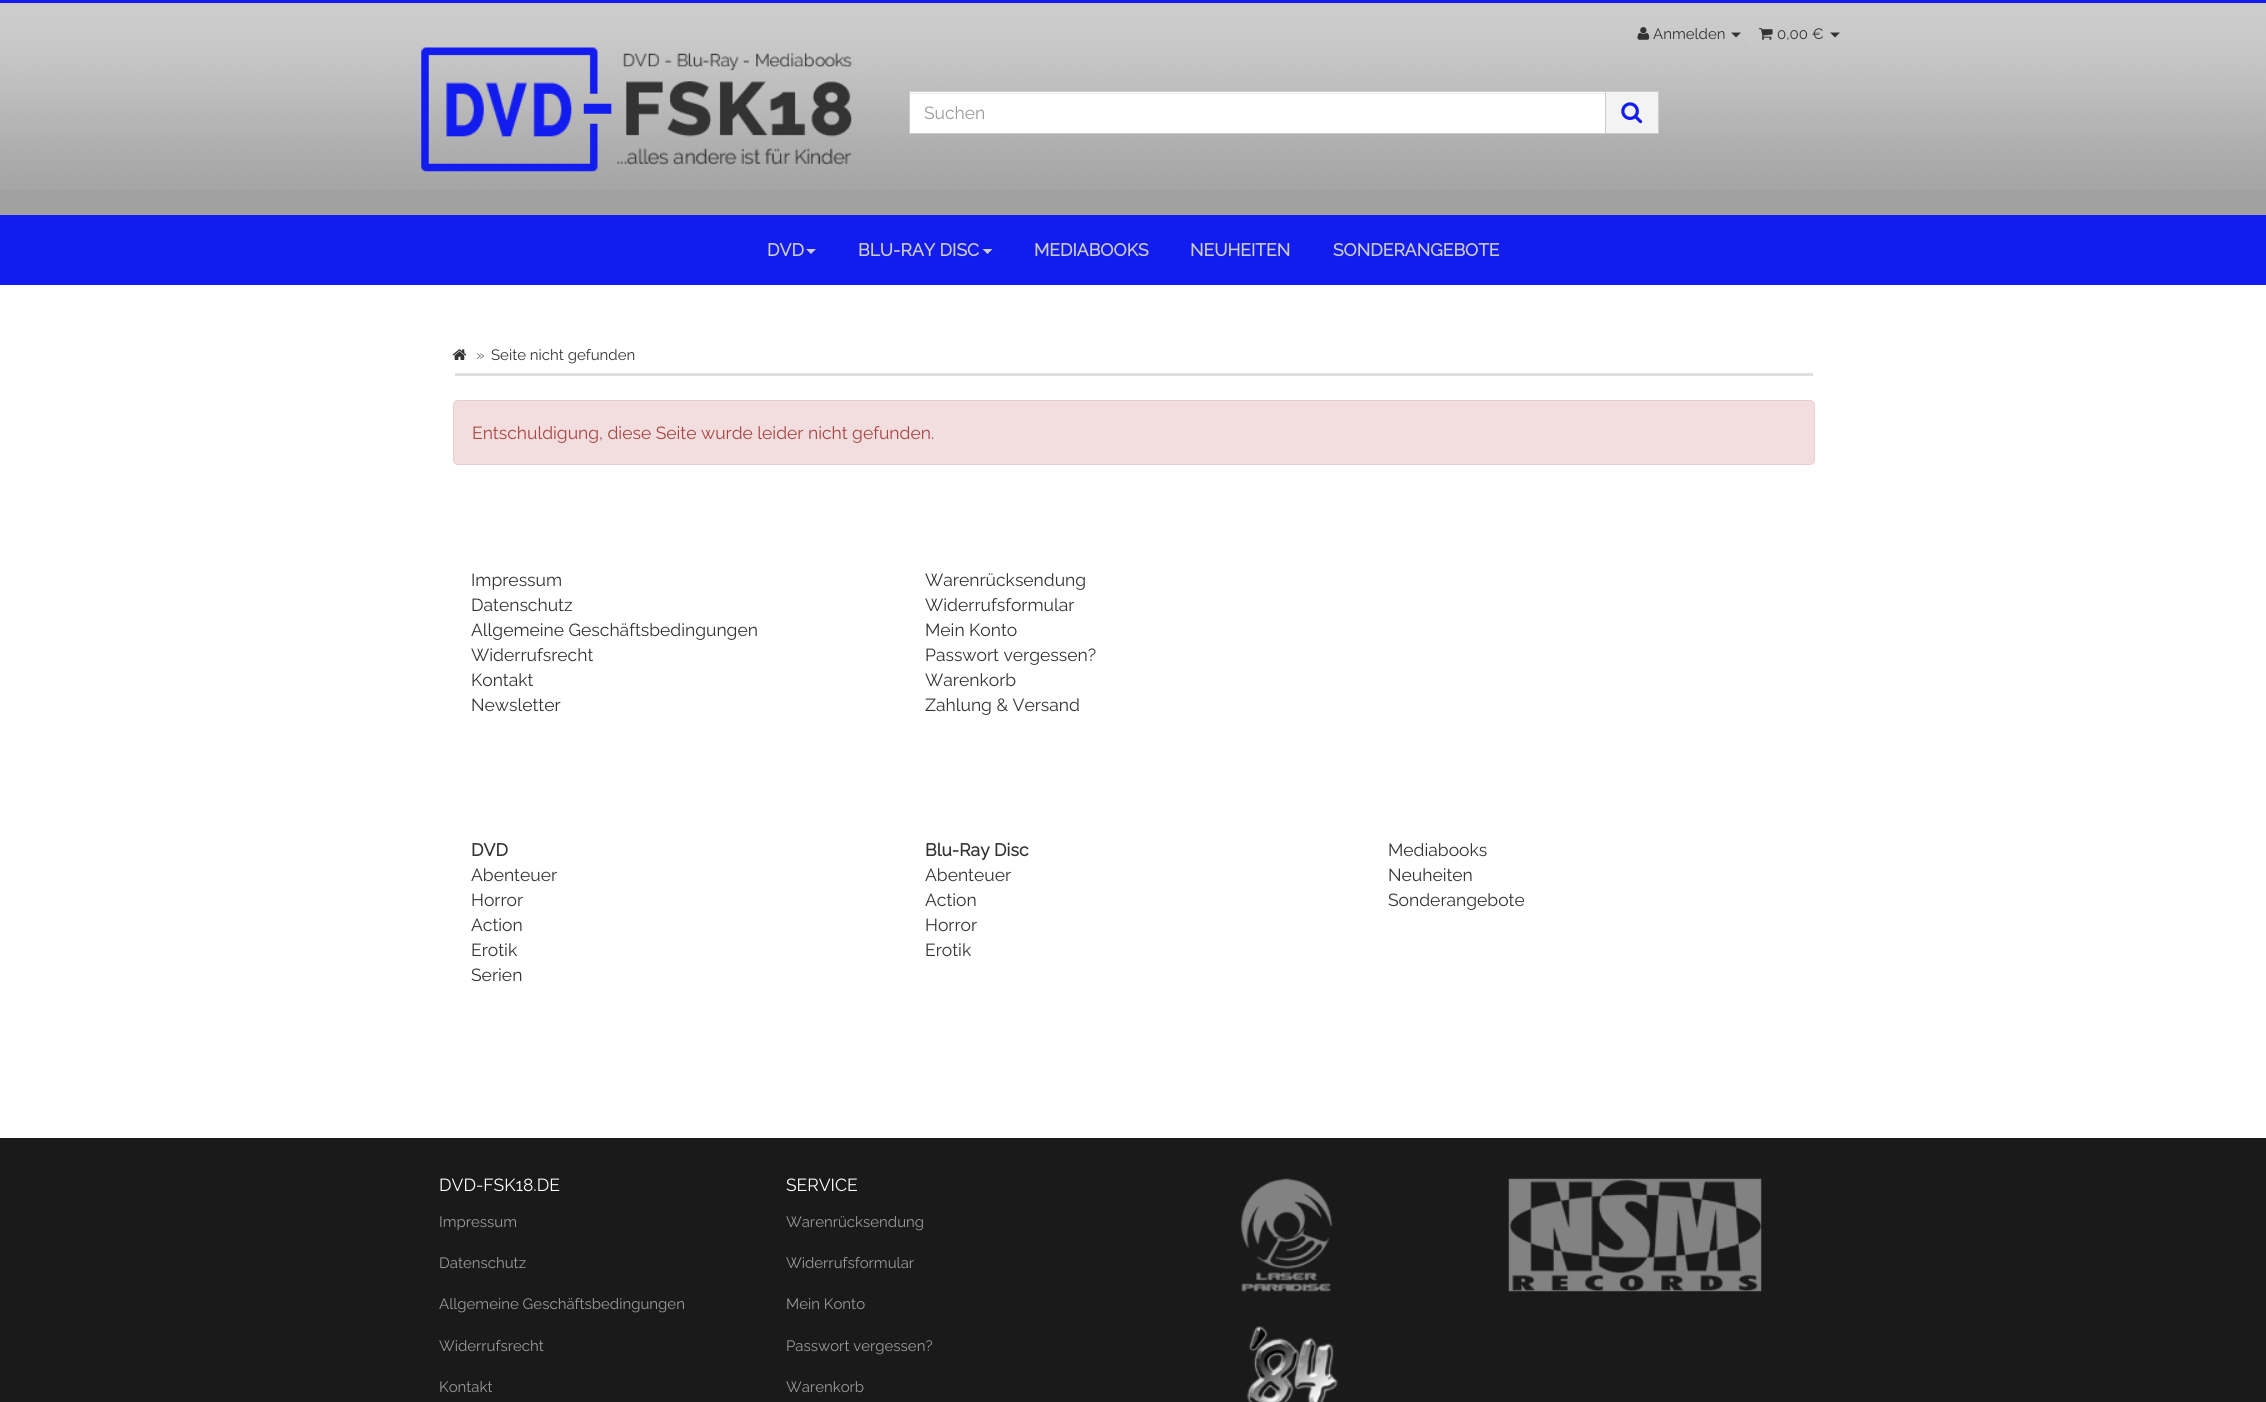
#include <cairo.h>
#include <math.h>
#include <stddef.h>

typedef struct { const char *family; double size; int italic, bold; unsigned color; } style_t;
static cairo_t *ctx;

static void ink(unsigned color) {
    cairo_set_source_rgb(ctx, (color >> 16) / 255.0, (color >> 8 & 255) / 255.0, (color & 255) / 255.0);
}

static void write(double x, double y, const char *s, const style_t *st) {
    cairo_select_font_face(ctx, st->family, st->italic ? CAIRO_FONT_SLANT_ITALIC : CAIRO_FONT_SLANT_NORMAL,
        st->bold ? CAIRO_FONT_WEIGHT_BOLD : CAIRO_FONT_WEIGHT_NORMAL);
    cairo_set_font_size(ctx, st->size);
    ink(st->color);
    cairo_move_to(ctx, x, y);
    cairo_show_text(ctx, s);
}

static void block(double x, double y, double w, double h, unsigned color) {
    ink(color);
    cairo_rectangle(ctx, x, y, w, h);
    cairo_fill(ctx);
}

static void round_path(double x, double y, double w, double h, double r) {
    cairo_new_sub_path(ctx);
    cairo_arc(ctx, x + w - r, y + h - r, r, 0, M_PI / 2);
    cairo_arc(ctx, x + r, y + h - r, r, M_PI / 2, M_PI);
    cairo_arc(ctx, x + r, y + r, r, M_PI, 1.5 * M_PI);
    cairo_arc(ctx, x + w - r, y + r, r, 1.5 * M_PI, 2 * M_PI);
    cairo_close_path(ctx);
}

static void paste(const char *path, double x, double y, double w, double h) {
    cairo_surface_t *image = cairo_image_surface_create_from_png(path);
    cairo_save(ctx);
    cairo_set_source_surface(ctx, image, x, y);
    cairo_rectangle(ctx, x, y, w, h);
    cairo_fill(ctx);
    cairo_restore(ctx);
    cairo_surface_destroy(image);
}

static const style_t s1 = {"Raleway Thin", 15, 0, 0, 0x333333};
static const style_t s2 = {"Raleway Thin", 17.5, 0, 0, 0x9a9a9a};
static const style_t s3 = {"Raleway", 17.5, 0, 1, 0xcccccc};
static const style_t s4 = {"Raleway Thin", 15, 0, 0, 0x606060};
static const style_t s5 = {"Raleway Thin", 17.5, 0, 0, 0xa94442};
static const style_t s6 = {"Raleway Thin", 17.5, 0, 0, 0x333333};
static const style_t s7 = {"Raleway", 17.5, 0, 1, 0x333333};
static const style_t s8 = {"Raleway Thin", 17.5, 0, 0, 0xffffff};
static const style_t s9 = {"Raleway Thin", 15, 0, 0, 0x9a9a9a};

int main(void) {
    cairo_surface_t *surface = cairo_image_surface_create(CAIRO_FORMAT_RGB24, 2266, 1402);
    ctx = cairo_create(surface);
    cairo_font_options_t *options = cairo_font_options_create();
    cairo_font_options_set_hint_metrics(options, CAIRO_HINT_METRICS_OFF);
    cairo_font_options_set_hint_style(options, CAIRO_HINT_STYLE_NONE);
    cairo_set_font_options(ctx, options);
    cairo_set_miter_limit(ctx, 4);
    ink(0xffffff);
    cairo_paint(ctx);
    block(0, 190, 2266, 25, 0xa1a1a1);
    paste("pic1.png", 0, 3, 2266, 187);
    block(0, 0, 2266, 3, 0x131cef);
    paste("pic2.png", 1637, 27, 13, 13);
    write(1653, 39, "Anmelden", &s1);
    cairo_new_path(ctx);
    cairo_move_to(ctx, 1731, 32.5);
    cairo_line_to(ctx, 1741, 32.5);
    cairo_line_to(ctx, 1736, 37.5);
    cairo_close_path(ctx);
    cairo_fill(ctx);
    block(1751, 34, 1, 11, 0xcccccc);
    paste("pic3.png", 1758, 28, 15, 12);
    write(1777, 39, "0,00 €", &s1);
    cairo_new_path(ctx);
    cairo_move_to(ctx, 1830, 32.5);
    cairo_line_to(ctx, 1840, 32.5);
    cairo_line_to(ctx, 1835, 37.5);
    cairo_close_path(ctx);
    cairo_fill(ctx);
    paste("pic4.png", 421, 47, 431, 125);
    block(910, 92, 695, 41, 0xffffff);
    block(910, 93, 695, 1, 0xececec);
    cairo_rectangle(ctx, 909.5, 91.5, 696, 42);
    ink(0xcccccc);
    cairo_set_line_width(ctx, 1);
    cairo_stroke(ctx);
    write(924, 119, "Suchen", &s2);
    block(1606, 92, 52, 41, 0xf3f3f3);
    block(1606, 91, 53, 1, 0xcccccc);
    block(1658, 91, 1, 43, 0xcccccc);
    block(1606, 133, 53, 1, 0xcccccc);
    paste("pic5.png", 1621, 102, 22, 22);
    block(0, 215, 2266, 70, 0x131cef);
    write(767, 256, "DVD", &s3);
    cairo_new_path(ctx);
    cairo_move_to(ctx, 806, 249);
    cairo_line_to(ctx, 816, 249);
    cairo_line_to(ctx, 811, 254);
    cairo_close_path(ctx);
    cairo_fill(ctx);
    write(858, 256, "BLU-RAY DISC", &s3);
    cairo_new_path(ctx);
    cairo_move_to(ctx, 982.5, 249);
    cairo_line_to(ctx, 992.5, 249);
    cairo_line_to(ctx, 987.5, 254);
    cairo_close_path(ctx);
    cairo_fill(ctx);
    write(1034, 256, "MEDIABOOKS", &s3);
    write(1190, 256, "NEUHEITEN", &s3);
    write(1333, 256, "SONDERANGEBOTE", &s3);
    block(455, 373, 1358, 3, 0xdfdfdf);
    paste("pic6.png", 452, 349, 15, 11);
    write(476, 360, "»", &s4);
    write(491, 360, "Seite nicht gefunden", &s1);
    ink(0xf2dede);
    round_path(453.5, 400.5, 1361, 64, 4.5);
    cairo_fill_preserve(ctx);
    ink(0xebccd1);
    cairo_stroke(ctx);
    write(472, 439, "Entschuldigung, diese Seite wurde leider nicht gefunden.", &s5);
    write(471, 586, "Impressum", &s6);
    write(471, 611, "Datenschutz", &s6);
    write(471, 636, "Allgemeine Geschäftsbedingungen", &s6);
    write(471, 661, "Widerrufsrecht", &s6);
    write(471, 686, "Kontakt", &s6);
    write(471, 711, "Newsletter", &s6);
    write(925, 586, "Warenrücksendung", &s6);
    write(925, 611, "Widerrufsformular", &s6);
    write(925, 636, "Mein Konto", &s6);
    write(925, 661, "Passwort vergessen?", &s6);
    write(925, 686, "Warenkorb", &s6);
    write(925, 711, "Zahlung & Versand", &s6);
    write(471, 856, "DVD", &s7);
    write(471, 881, "Abenteuer", &s6);
    write(471, 906, "Horror", &s6);
    write(471, 931, "Action", &s6);
    write(471, 956, "Erotik", &s6);
    write(471, 981, "Serien", &s6);
    write(925, 856, "Blu-Ray Disc", &s7);
    write(925, 881, "Abenteuer", &s6);
    write(925, 906, "Action", &s6);
    write(925, 931, "Horror", &s6);
    write(925, 956, "Erotik", &s6);
    write(1388, 856, "Mediabooks", &s6);
    write(1388, 881, "Neuheiten", &s6);
    write(1388, 906, "Sonderangebote", &s6);
    block(0, 1138, 2266, 264, 0x1a1a1a);
    write(439, 1191, "DVD-FSK18.DE", &s8);
    write(439, 1227, "Impressum", &s9);
    write(439, 1268, "Datenschutz", &s9);
    write(439, 1309, "Allgemeine Geschäftsbedingungen", &s9);
    write(439, 1351, "Widerrufsrecht", &s9);
    write(439, 1392, "Kontakt", &s9);
    write(786, 1191, "SERVICE", &s8);
    write(786, 1227, "Warenrücksendung", &s9);
    write(786, 1268, "Widerrufsformular", &s9);
    write(786, 1309, "Mein Konto", &s9);
    write(786, 1351, "Passwort vergessen?", &s9);
    write(786, 1392, "Warenkorb", &s9);
    paste("pic7.png", 1241, 1178, 92, 114);
    paste("pic8.png", 1246, 1326, 92, 76);
    paste("pic9.png", 1508, 1178, 254, 114);
    cairo_surface_write_to_png(surface, "screenshot.png");
    cairo_font_options_destroy(options);
    cairo_destroy(ctx);
    cairo_surface_destroy(surface);
    return 0;
}
